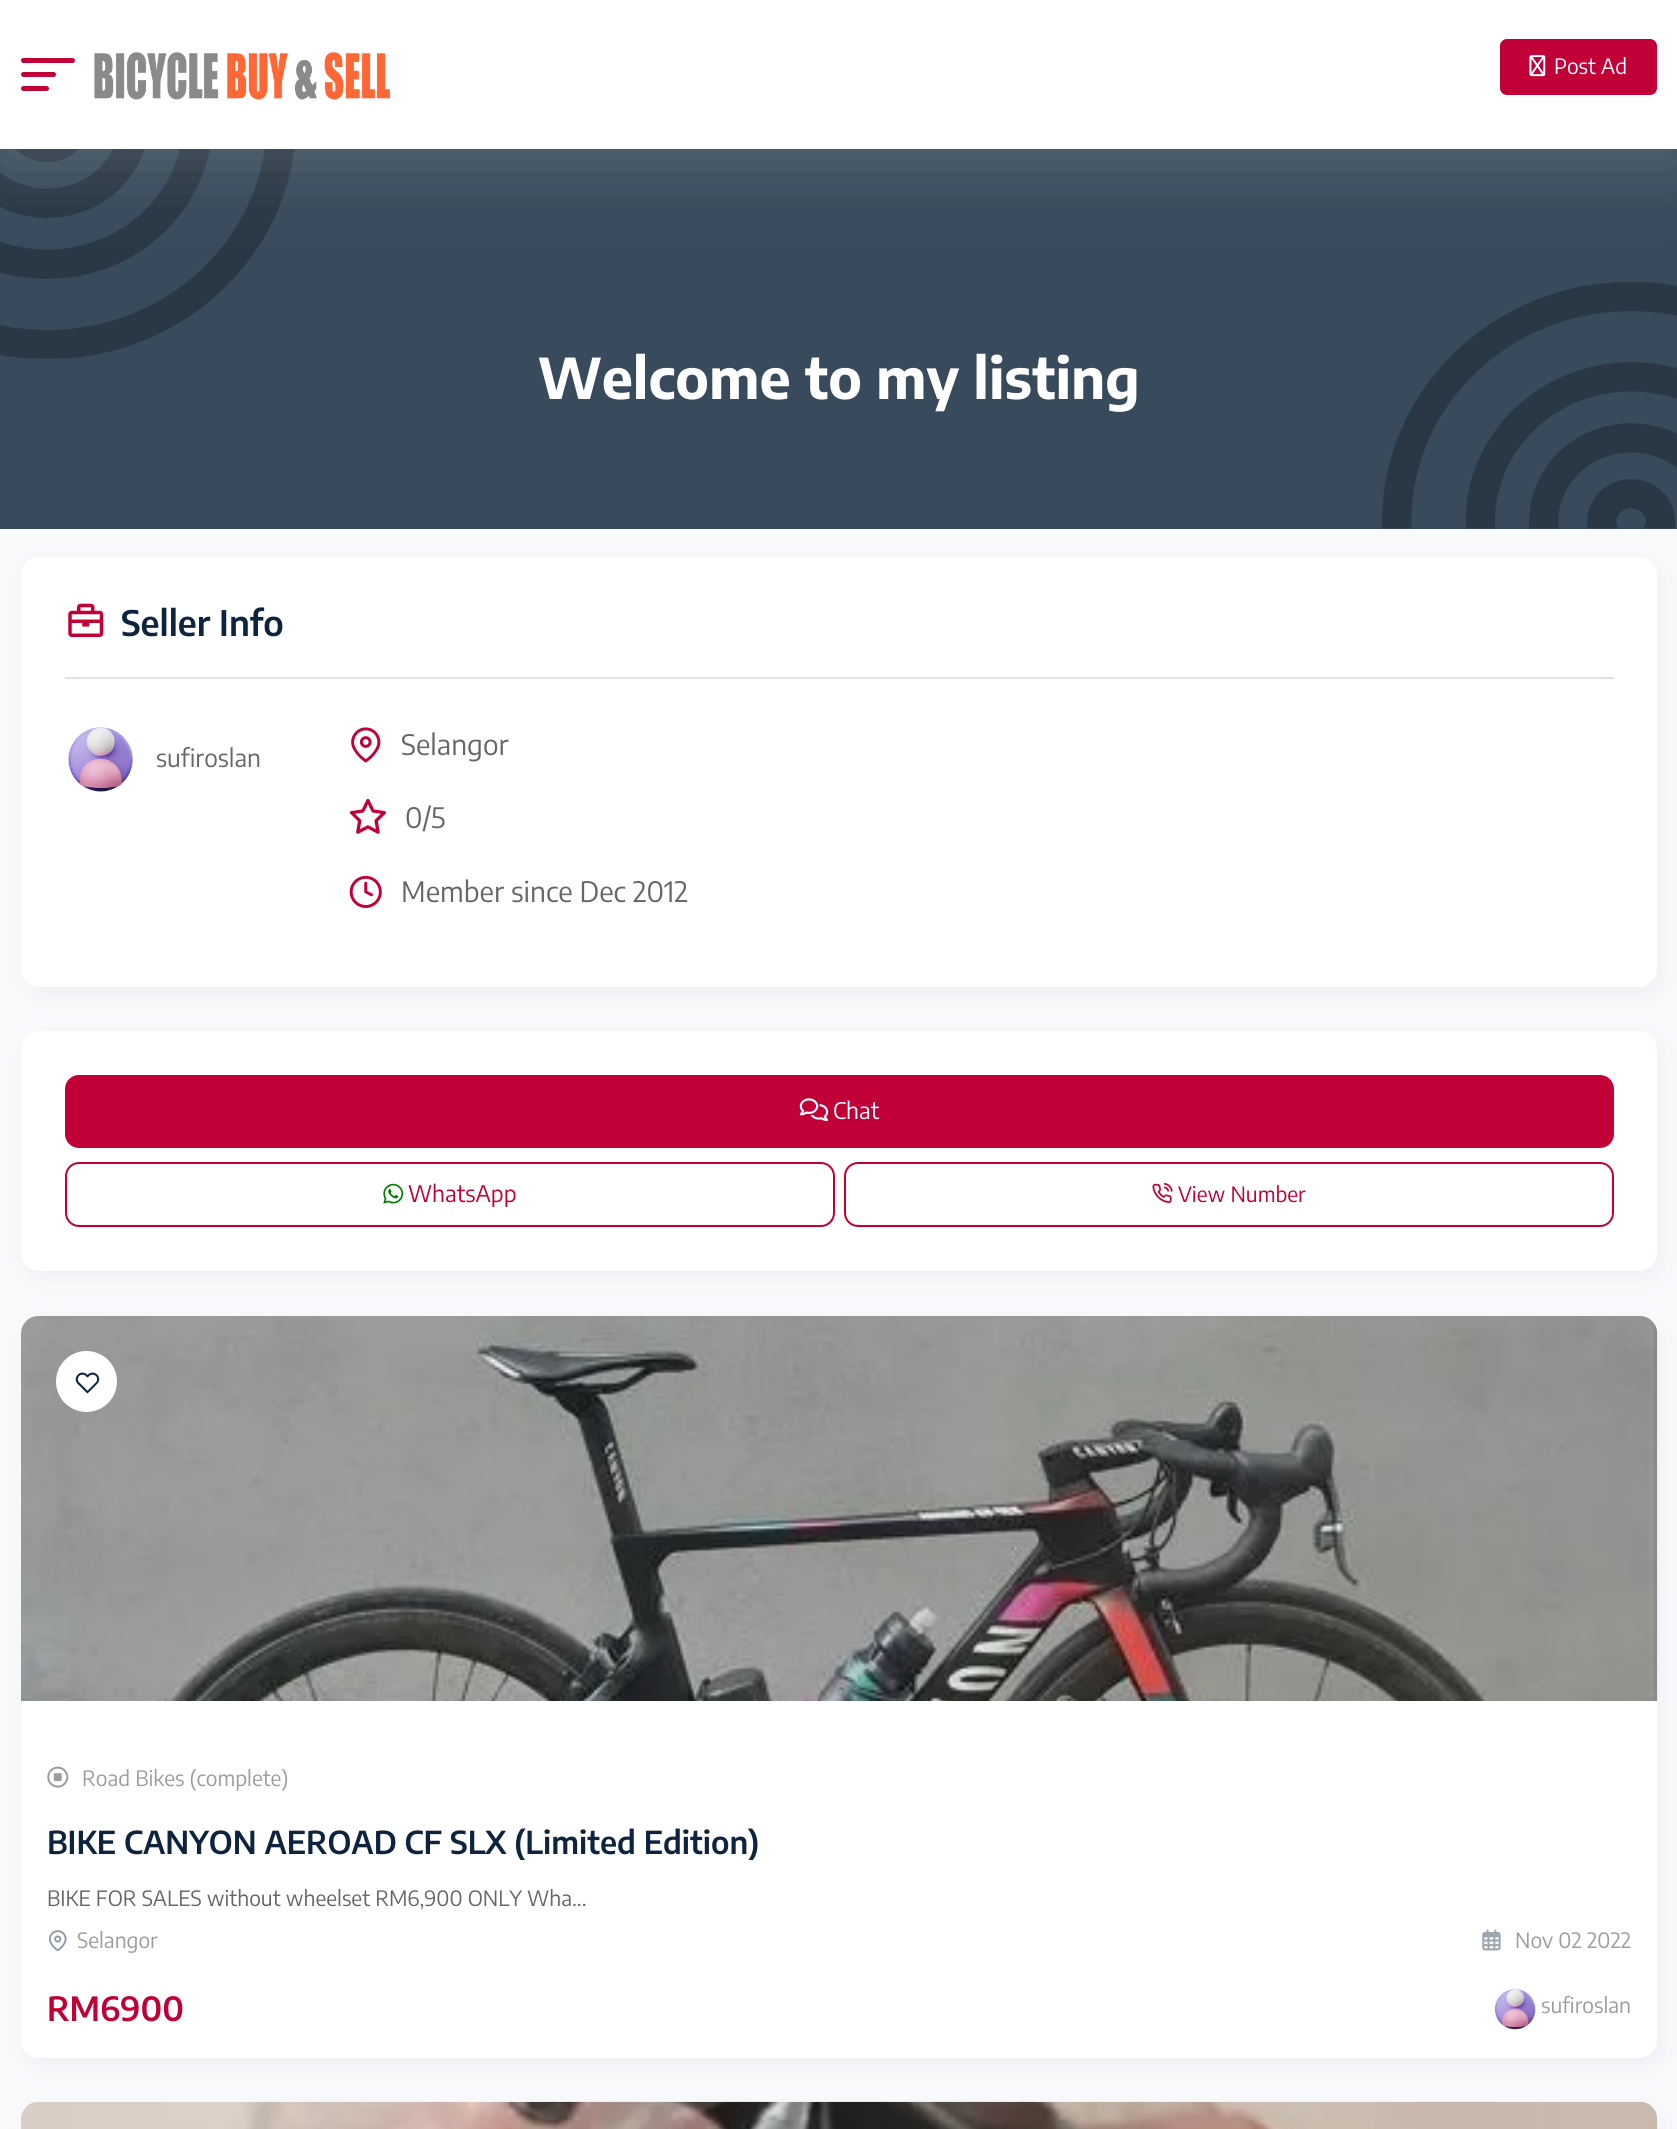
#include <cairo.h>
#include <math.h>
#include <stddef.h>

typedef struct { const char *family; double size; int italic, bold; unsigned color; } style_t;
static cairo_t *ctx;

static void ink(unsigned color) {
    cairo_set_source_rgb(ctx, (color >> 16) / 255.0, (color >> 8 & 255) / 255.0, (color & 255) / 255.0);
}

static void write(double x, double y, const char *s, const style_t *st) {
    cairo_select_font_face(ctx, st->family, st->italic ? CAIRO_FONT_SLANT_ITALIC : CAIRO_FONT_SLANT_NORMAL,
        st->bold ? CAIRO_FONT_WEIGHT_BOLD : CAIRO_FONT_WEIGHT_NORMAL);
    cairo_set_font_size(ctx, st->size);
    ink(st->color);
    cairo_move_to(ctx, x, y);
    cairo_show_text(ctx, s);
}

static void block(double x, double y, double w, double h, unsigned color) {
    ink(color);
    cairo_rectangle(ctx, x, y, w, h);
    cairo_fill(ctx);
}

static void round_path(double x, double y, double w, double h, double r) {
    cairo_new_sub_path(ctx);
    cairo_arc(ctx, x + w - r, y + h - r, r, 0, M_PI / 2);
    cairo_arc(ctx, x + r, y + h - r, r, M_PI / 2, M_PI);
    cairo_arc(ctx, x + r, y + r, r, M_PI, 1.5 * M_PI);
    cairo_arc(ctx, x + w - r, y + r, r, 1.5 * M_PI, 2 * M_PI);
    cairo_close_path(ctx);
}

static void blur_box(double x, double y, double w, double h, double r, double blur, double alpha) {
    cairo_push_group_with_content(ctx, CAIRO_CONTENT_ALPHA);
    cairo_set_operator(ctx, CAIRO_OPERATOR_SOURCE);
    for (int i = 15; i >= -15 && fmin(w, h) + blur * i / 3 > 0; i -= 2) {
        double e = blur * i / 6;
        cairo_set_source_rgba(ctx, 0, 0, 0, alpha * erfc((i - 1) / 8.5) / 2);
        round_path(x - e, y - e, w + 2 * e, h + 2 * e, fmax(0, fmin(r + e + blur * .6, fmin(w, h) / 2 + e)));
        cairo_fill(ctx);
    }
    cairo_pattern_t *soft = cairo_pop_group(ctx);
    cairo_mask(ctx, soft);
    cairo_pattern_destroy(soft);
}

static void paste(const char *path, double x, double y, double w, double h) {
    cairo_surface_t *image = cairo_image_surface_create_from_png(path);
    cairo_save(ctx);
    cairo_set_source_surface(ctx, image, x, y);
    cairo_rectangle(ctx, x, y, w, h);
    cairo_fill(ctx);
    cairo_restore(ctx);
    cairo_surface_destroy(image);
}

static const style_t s1 = {"Encode Sans Condensed", 21, 0, 0, 0xffffff};
static const style_t s2 = {"Encode Sans Condensed", 56, 0, 1, 0xffffff};
static const style_t s3 = {"Encode Sans Condensed SemiBold", 35, 0, 0, 0x0d233e};
static const style_t s4 = {"Encode Sans Condensed", 24.5, 0, 0, 0x666666};
static const style_t s5 = {"Encode Sans Condensed", 28, 0, 0, 0x666666};
static const style_t s6 = {"Encode Sans Condensed", 22.75, 0, 0, 0xffffff};
static const style_t s7 = {"Encode Sans Condensed", 22.75, 0, 0, 0xc10037};
static const style_t s8 = {"Encode Sans Condensed", 21, 0, 0, 0xc10037};
static const style_t s9 = {"Encode Sans Condensed", 21, 0, 0, 0x9c9c9c};
static const style_t s10 = {"Encode Sans Condensed SemiBold", 31.5, 0, 0, 0x0d233e};
static const style_t s11 = {"Encode Sans Condensed", 21, 0, 0, 0x666666};
static const style_t s12 = {"Encode Sans Condensed SemiBold", 33.25, 0, 0, 0xc10037};

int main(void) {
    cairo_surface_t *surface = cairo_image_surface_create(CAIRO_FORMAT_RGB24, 1677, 2129);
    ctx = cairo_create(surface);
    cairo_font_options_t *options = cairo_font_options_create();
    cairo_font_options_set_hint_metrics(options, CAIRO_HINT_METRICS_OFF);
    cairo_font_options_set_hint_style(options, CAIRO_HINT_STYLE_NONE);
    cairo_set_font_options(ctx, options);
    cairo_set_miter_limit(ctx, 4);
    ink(0xf9fafc);
    cairo_paint(ctx);
    block(0, 149, 1677, 380, 0x384b5c);
    paste("pic3.png", 0, 149, 295, 210);
    ink(0xcacaca);
    blur_box(0, 18, 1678, 148, 0, 35, 0.2);
    block(0, 0, 1677, 149, 0xffffff);
    ink(0xc10037);
    round_path(21, 58, 54, 5, 2.5);
    cairo_fill(ctx);
    round_path(21, 72, 35, 5, 2.5);
    cairo_fill(ctx);
    round_path(21, 86, 28, 5, 2.5);
    cairo_fill(ctx);
    paste("pic1.png", 94, 52, 296, 48);
    round_path(1501, 40, 155, 54, 6);
    cairo_fill_preserve(ctx);
    cairo_stroke(ctx);
    paste("pic2.png", 1529, 55, 17, 22);
    write(1554, 74, "Post Ad", &s1);
    write(538, 399, "Welcome to my listing", &s2);
    paste("pic4.png", 1382, 281, 295, 248);
    ink(0xdee2e7);
    blur_box(26, 565, 1637, 431, 18, 11.5, 0.44);
    ink(0xffffff);
    round_path(21, 557, 1636, 430, 18);
    cairo_fill(ctx);
    block(65, 677, 1549, 2, 0xdee2e7);
    paste("pic5.png", 68, 603, 36, 34);
    write(121, 636, "Seller Info", &s3);
    paste("pic6.png", 68, 727, 65, 65);
    write(156, 767, "sufiroslan", &s4);
    paste("pic7.png", 351, 727, 30, 36);
    write(401, 755, "Selangor", &s5);
    paste("pic8.png", 349, 798, 37, 36);
    write(405, 828, "0/5", &s5);
    paste("pic9.png", 349, 875, 33, 33);
    write(401, 902, "Member since Dec 2012", &s5);
    ink(0xdee2e7);
    blur_box(26, 1040, 1637, 239, 18, 11.5, 0.44);
    ink(0xffffff);
    round_path(21, 1031, 1636, 240, 18);
    cairo_fill(ctx);
    ink(0xc10037);
    round_path(66, 1076, 1547, 71, 13);
    cairo_fill_preserve(ctx);
    cairo_stroke(ctx);
    paste("pic10.png", 799, 1098, 30, 24);
    write(833, 1119, "Chat", &s6);
    round_path(66, 1163, 768, 63, 13);
    ink(0xc10037);
    cairo_stroke(ctx);
    paste("pic11.png", 383, 1183, 21, 21);
    write(408, 1202, "WhatsApp", &s7);
    round_path(845, 1163, 768, 63, 13);
    cairo_stroke(ctx);
    paste("pic12.png", 1152, 1183, 21, 20);
    write(1178, 1202, "View Number", &s8);
    ink(0xdee2e7);
    blur_box(26, 1325, 1637, 742, 18, 11.5, 0.44);
    ink(0xffffff);
    round_path(21, 1316, 1636, 742, 18);
    cairo_fill(ctx);
    paste("pic13.png", 21, 1316, 1637, 385);
    cairo_arc(ctx, 86.5, 1381.5, 30.5, 0, 2 * M_PI);
    cairo_fill(ctx);
    paste("pic14.png", 75, 1372, 25, 22);
    paste("pic15.png", 47, 1766, 22, 22);
    write(82, 1786, "Road Bikes (complete)", &s9);
    cairo_save(ctx);
    cairo_rectangle(ctx, 47, 1822, 1584, 38);
    cairo_clip(ctx);
    write(47, 1854, "BIKE CANYON AEROAD CF SLX (Limited Edition)", &s10);
    cairo_restore(ctx);
    write(47, 1906, "BIKE FOR SALES without wheelset RM6,900 ONLY Wha...", &s11);
    paste("pic16.png", 49, 1930, 18, 22);
    write(77, 1948, "Selangor", &s9);
    paste("pic17.png", 1482, 1929, 19, 22);
    write(1515, 1948, "Nov 02 2022", &s9);
    write(47, 2021, "RM6900", &s12);
    paste("pic18.png", 1494, 1988, 42, 42);
    write(1541, 2013, "sufiroslan", &s9);
    ink(0xdee2e7);
    blur_box(26, 2111, 1637, 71, 18, 11.5, 0.44);
    paste("pic19.png", 21, 2101, 1637, 28);
    cairo_surface_write_to_png(surface, "screenshot.png");
    cairo_font_options_destroy(options);
    cairo_destroy(ctx);
    cairo_surface_destroy(surface);
    return 0;
}
